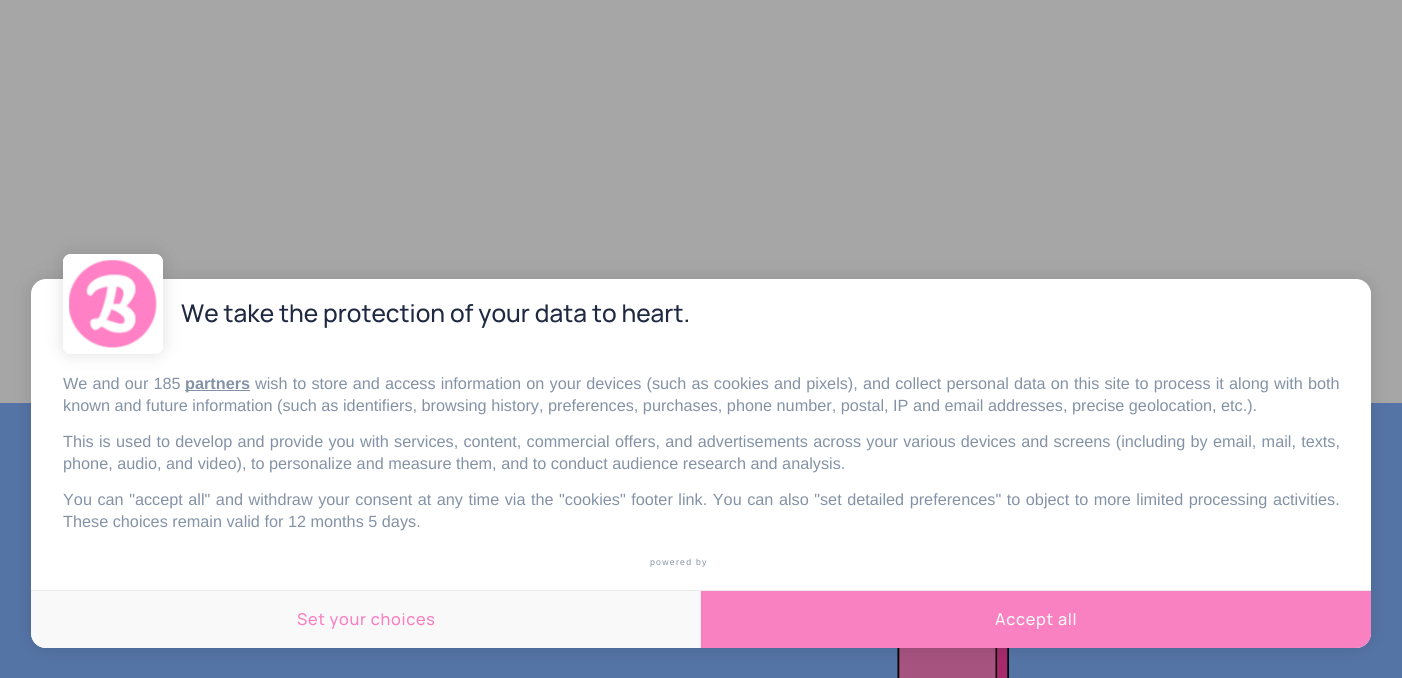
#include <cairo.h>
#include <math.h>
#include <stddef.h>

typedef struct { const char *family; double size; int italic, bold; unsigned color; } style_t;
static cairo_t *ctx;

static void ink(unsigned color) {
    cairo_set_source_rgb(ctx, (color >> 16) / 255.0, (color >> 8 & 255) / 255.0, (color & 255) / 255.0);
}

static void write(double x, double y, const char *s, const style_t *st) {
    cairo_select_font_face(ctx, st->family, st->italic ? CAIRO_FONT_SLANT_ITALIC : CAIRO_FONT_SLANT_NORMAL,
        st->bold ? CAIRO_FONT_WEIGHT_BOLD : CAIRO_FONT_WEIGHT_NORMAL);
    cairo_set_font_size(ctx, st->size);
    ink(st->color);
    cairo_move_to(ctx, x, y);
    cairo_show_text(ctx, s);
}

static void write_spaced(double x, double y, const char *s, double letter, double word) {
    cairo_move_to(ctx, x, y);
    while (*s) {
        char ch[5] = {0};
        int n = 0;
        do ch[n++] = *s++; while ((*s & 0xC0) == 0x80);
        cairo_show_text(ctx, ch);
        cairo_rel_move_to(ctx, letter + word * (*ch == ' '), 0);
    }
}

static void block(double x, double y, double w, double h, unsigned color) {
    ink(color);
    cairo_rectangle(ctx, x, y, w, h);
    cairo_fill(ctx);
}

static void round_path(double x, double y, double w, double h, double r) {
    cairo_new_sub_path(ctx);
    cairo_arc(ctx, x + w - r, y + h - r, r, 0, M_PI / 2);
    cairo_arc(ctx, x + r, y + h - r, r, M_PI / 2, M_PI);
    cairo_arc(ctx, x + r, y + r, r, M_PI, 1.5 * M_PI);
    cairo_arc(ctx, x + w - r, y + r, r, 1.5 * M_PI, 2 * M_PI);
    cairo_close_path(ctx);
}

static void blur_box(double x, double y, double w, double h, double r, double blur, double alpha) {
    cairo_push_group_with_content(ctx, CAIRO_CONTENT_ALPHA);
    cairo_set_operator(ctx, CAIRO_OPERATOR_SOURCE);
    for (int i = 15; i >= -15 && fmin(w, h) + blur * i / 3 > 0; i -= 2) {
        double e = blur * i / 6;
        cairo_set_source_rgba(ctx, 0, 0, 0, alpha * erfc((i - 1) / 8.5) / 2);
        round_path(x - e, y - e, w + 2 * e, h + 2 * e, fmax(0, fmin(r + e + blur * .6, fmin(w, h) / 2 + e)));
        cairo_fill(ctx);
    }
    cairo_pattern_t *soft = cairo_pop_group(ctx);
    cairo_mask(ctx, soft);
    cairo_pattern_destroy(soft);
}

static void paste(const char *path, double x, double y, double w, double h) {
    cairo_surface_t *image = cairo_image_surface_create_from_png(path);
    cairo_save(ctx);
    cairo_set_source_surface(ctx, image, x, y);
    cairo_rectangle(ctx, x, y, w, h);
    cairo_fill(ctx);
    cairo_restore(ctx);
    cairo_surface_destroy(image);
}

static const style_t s1 = {"Manrope Medium", 24.4, 0, 0, 0x202942};
static const style_t s2 = {"Liberation Sans", 16.25, 0, 1, 0x8492a6};
static const style_t s3 = {"Liberation Sans", 16.25, 0, 0, 0x8492a6};

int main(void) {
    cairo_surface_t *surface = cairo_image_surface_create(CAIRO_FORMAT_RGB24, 1402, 678);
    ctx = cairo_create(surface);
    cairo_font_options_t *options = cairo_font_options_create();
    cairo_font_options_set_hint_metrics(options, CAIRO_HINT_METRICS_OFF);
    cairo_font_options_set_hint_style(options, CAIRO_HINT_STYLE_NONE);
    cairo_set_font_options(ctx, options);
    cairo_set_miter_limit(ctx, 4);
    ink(0xa6a6a6);
    cairo_paint(ctx);
    block(0, 403, 1402, 275, 0x5474a6);
    paste("pic2.png", 897, 648, 112, 30);
    ink(0x000000);
    blur_box(31, 279, 1340, 369, 15, 9.5, 0.12);
    ink(0xffffff);
    round_path(31, 279, 1340, 369, 15);
    cairo_fill(ctx);
    ink(0x000000);
    blur_box(63, 254, 100, 100, 8, 9.5, 0.12);
    ink(0xffffff);
    round_path(63, 254, 100, 100, 8);
    cairo_fill(ctx);
    paste("pic1.png", 69, 260, 88, 88);
    round_path(66, 257, 94, 94, 5);
    cairo_set_line_width(ctx, 6);
    cairo_stroke(ctx);
    write(181, 322, "We take the protection of your data to heart.", &s1);
    cairo_select_font_face(ctx, "Liberation Sans", CAIRO_FONT_SLANT_NORMAL, CAIRO_FONT_WEIGHT_NORMAL);
    cairo_set_font_size(ctx, 16.25);
    ink(0x8492a6);
    write_spaced(63, 389, "We and our 185", 0, 0.65);
    block(185, 390, 65, 1, 0x8492a6);
    write(185, 389, "partners", &s2);
    cairo_select_font_face(ctx, "Liberation Sans", CAIRO_FONT_SLANT_NORMAL, CAIRO_FONT_WEIGHT_NORMAL);
    write_spaced(255, 389, "wish to store and access information on your devices (such as cookies and pixels), and collect personal data on this site to process it along with both", 0, 0.65);
    write(63, 411, "known and future information (such as identifiers, browsing history, preferences, purchases, phone number, postal, IP and email addresses, precise geolocation, etc.).", &s3);
    write_spaced(63, 447, "This is used to develop and provide you with services, content, commercial offers, and advertisements across your various devices and screens (including by email, mail, texts,", 0, 0.75);
    write(63, 469, "phone, audio, and video), to personalize and measure them, and to conduct audience research and analysis.", &s3);
    write_spaced(63, 505, "You can \"accept all\" and withdraw your consent at any time via the \"cookies\" footer link. You can also \"set detailed preferences\" to object to more limited processing activities.", 0, 1);
    write(63, 527, "These choices remain valid for 12 months 5 days.", &s3);
    cairo_set_font_size(ctx, 8.75);
    write_spaced(650, 565, "powered by", 1.25, 0);
    ink(0xf9f9f9);
    cairo_new_path(ctx);
    cairo_move_to(ctx, 31, 590);
    cairo_line_to(ctx, 701, 590);
    cairo_line_to(ctx, 701, 648);
    cairo_line_to(ctx, 46, 648);
    cairo_curve_to(ctx, 37.5, 648, 31, 641.5, 31, 633);
    cairo_close_path(ctx);
    cairo_fill(ctx);
    block(31, 590, 670, 1, 0xeaeaea);
    block(700, 590, 1, 58, 0xeaeaea);
    cairo_select_font_face(ctx, "Manrope Medium", CAIRO_FONT_SLANT_NORMAL, CAIRO_FONT_WEIGHT_NORMAL);
    cairo_set_font_size(ctx, 16.25);
    ink(0xf980c1);
    write_spaced(297, 625, "Set your choices", 0.7, 0);
    cairo_new_path(ctx);
    cairo_move_to(ctx, 701, 590);
    cairo_line_to(ctx, 1371, 590);
    cairo_line_to(ctx, 1371, 633);
    cairo_curve_to(ctx, 1371, 641.5, 1364.5, 648, 1356, 648);
    cairo_line_to(ctx, 701, 648);
    cairo_close_path(ctx);
    cairo_fill(ctx);
    block(701, 590, 670, 1, 0xeaeaea);
    ink(0xf9f9f9);
    write_spaced(995, 625, "Accept all", 0.7, 0);
    cairo_surface_write_to_png(surface, "screenshot.png");
    cairo_font_options_destroy(options);
    cairo_destroy(ctx);
    cairo_surface_destroy(surface);
    return 0;
}
